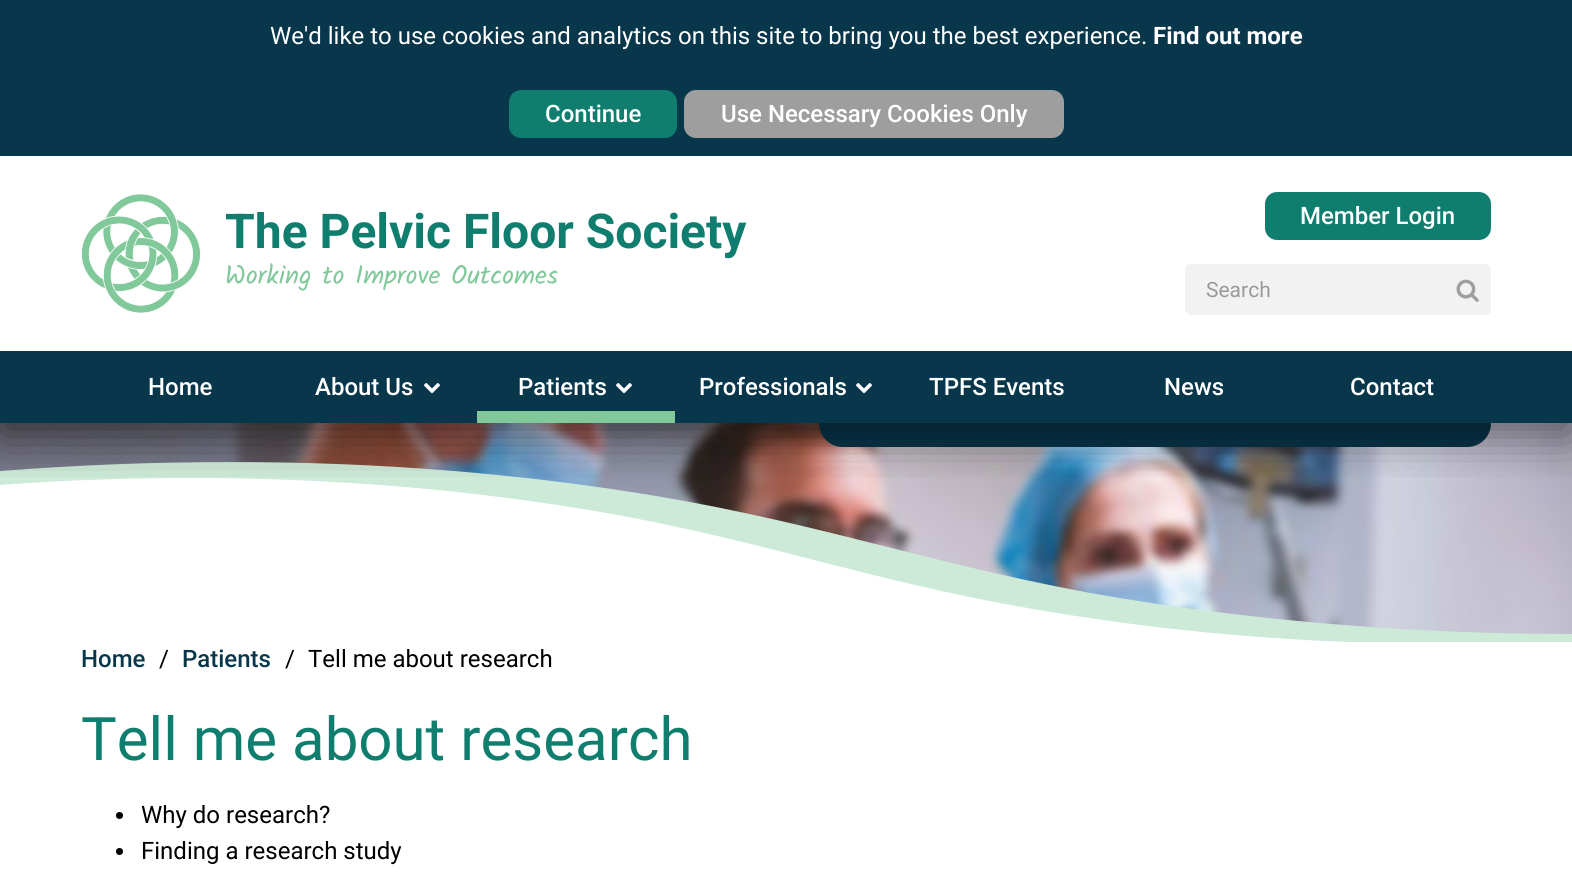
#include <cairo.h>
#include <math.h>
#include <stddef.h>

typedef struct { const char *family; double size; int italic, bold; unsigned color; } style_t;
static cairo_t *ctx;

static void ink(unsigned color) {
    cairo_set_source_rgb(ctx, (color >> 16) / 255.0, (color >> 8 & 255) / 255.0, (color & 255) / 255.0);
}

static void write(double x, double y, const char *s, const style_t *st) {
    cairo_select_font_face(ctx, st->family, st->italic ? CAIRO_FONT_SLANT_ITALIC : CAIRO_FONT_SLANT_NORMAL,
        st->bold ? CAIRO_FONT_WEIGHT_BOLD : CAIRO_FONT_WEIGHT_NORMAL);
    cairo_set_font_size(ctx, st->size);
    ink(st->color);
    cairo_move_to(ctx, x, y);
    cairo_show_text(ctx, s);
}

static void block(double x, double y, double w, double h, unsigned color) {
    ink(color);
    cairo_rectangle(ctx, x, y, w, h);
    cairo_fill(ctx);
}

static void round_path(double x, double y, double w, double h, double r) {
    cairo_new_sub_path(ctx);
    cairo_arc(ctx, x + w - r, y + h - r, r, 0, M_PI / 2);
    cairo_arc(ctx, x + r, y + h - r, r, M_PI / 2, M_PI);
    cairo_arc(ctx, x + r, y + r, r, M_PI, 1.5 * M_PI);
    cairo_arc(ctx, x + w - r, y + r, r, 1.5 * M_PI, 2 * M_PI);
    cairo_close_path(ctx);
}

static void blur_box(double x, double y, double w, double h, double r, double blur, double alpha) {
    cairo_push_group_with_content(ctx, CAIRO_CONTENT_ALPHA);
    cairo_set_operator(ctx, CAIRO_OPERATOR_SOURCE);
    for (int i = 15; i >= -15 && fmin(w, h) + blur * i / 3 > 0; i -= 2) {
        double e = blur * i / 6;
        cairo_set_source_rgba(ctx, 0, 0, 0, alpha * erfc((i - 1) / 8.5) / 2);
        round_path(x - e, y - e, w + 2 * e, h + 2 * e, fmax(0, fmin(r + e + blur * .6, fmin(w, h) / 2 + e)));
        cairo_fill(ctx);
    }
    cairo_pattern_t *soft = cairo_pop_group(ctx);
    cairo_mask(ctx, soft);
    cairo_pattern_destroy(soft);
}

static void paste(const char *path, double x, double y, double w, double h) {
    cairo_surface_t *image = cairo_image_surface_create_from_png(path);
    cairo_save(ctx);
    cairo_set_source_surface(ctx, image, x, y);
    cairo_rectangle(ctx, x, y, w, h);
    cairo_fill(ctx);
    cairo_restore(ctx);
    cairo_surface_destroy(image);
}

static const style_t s1 = {"Roboto", 24, 0, 0, 0xffffff};
static const style_t s2 = {"Roboto", 24, 0, 1, 0xffffff};
static const style_t s3 = {"Roboto Medium", 24, 0, 0, 0xffffff};
static const style_t s4 = {"Roboto", 48, 0, 1, 0x0f7e6f};
static const style_t s5 = {"Kalam", 26.4, 0, 0, 0x81c89a};
static const style_t s6 = {"Roboto", 21, 0, 0, 0x999999};
static const style_t s7 = {"Roboto Medium", 24, 0, 0, 0x08364b};
static const style_t s8 = {"Roboto", 24, 0, 0, 0x000000};
static const style_t s9 = {"Roboto", 60, 0, 0, 0x0f7e6f};

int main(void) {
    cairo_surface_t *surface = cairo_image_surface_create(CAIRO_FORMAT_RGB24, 1572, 874);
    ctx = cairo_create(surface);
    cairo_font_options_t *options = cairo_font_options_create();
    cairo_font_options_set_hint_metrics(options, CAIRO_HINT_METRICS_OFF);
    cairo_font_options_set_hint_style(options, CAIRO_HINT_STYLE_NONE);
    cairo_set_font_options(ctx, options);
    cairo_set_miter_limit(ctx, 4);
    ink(0xffffff);
    cairo_paint(ctx);
    paste("pic4.png", 0, 423, 1572, 211);
    ink(0x08364b);
    cairo_new_path(ctx);
    cairo_move_to(ctx, 819, 423);
    cairo_line_to(ctx, 1491, 423);
    cairo_curve_to(ctx, 1491, 436.5, 1480.5, 447, 1467, 447);
    cairo_line_to(ctx, 843, 447);
    cairo_curve_to(ctx, 829.5, 447, 819, 436.5, 819, 423);
    cairo_close_path(ctx);
    cairo_fill(ctx);
    ink(0xcde9d7);
    cairo_new_path(ctx);
    cairo_move_to(ctx, 231, 462);
    cairo_curve_to(ctx, 155, 462, 78, 465, 0, 471);
    cairo_line_to(ctx, 0, 642);
    cairo_line_to(ctx, 1572, 642);
    cairo_line_to(ctx, 1572, 634);
    cairo_curve_to(ctx, 1418, 634, 1267, 622, 1119, 598);
    cairo_curve_to(ctx, 946, 569, 829, 525, 656, 496);
    cairo_curve_to(ctx, 518, 473, 376, 462, 231, 462);
    cairo_close_path(ctx);
    cairo_fill(ctx);
    ink(0xffffff);
    cairo_new_path(ctx);
    cairo_move_to(ctx, 193, 478);
    cairo_curve_to(ctx, 129, 478, 65, 480, 0, 485);
    cairo_line_to(ctx, 0, 642);
    cairo_line_to(ctx, 1349, 642);
    cairo_curve_to(ctx, 1242, 638, 1137, 627, 1033, 609);
    cairo_curve_to(ctx, 869, 581, 759, 539, 595, 511);
    cairo_curve_to(ctx, 464, 489, 330, 478, 193, 478);
    cairo_close_path(ctx);
    cairo_fill(ctx);
    cairo_save(ctx);
    cairo_rectangle(ctx, 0, 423, 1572, 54);
    cairo_clip(ctx);
    ink(0x000000);
    blur_box(0, 12, 1572, 423, 0, 24, 0.5);
    cairo_restore(ctx);
    block(0, 0, 1572, 156, 0x08364b);
    write(270, 44, "We'd like to use cookies and analytics on this site to bring you the best experience.", &s1);
    write(1153, 44, "Find out more", &s2);
    ink(0x0f7e6f);
    round_path(509, 90, 168, 48, 12);
    cairo_fill(ctx);
    write(545, 122, "Continue", &s3);
    ink(0x9e9e9e);
    round_path(684, 90, 380, 48, 12);
    cairo_fill(ctx);
    write(721, 122, "Use Necessary Cookies Only", &s3);
    paste("pic1.png", 81, 194, 120, 119);
    write(225, 248, "The Pelvic Floor Society", &s4);
    write(225, 284, "Working to Improve Outcomes", &s5);
    ink(0x0f7e6f);
    round_path(1265, 192, 226, 48, 12);
    cairo_fill(ctx);
    write(1300, 224, "Member Login", &s3);
    ink(0xf2f2f2);
    round_path(1185, 264, 306, 51, 6);
    cairo_fill(ctx);
    write(1206, 297, "Search", &s6);
    paste("pic2.png", 1456, 279, 23, 23);
    block(0, 351, 1572, 72, 0x08364b);
    write(148, 395, "Home", &s3);
    write(315, 395, "About Us", &s3);
    paste("pic3.png", 423, 383, 18, 11);
    block(477, 411, 198, 12, 0x81c89a);
    write(518, 395, "Patients", &s3);
    paste("pic3.png", 615, 383, 18, 11);
    write(699, 395, "Professionals", &s3);
    paste("pic3.png", 855, 383, 18, 11);
    write(929, 395, "TPFS Events", &s3);
    write(1164, 395, "News", &s3);
    write(1350, 395, "Contact", &s3);
    write(81, 667, "Home", &s7);
    write(159, 667, "/", &s8);
    write(182, 667, "Patients", &s7);
    write(285, 667, "/", &s8);
    write(308, 667, "Tell me about research", &s8);
    write(81, 760, "Tell me about research", &s9);
    ink(0x000000);
    cairo_new_path(ctx);
    cairo_arc(ctx, 119.5, 815.5, 3.5, 0, 2 * M_PI);
    cairo_fill(ctx);
    write(141, 823, "Why do research?", &s8);
    cairo_new_path(ctx);
    cairo_arc(ctx, 119.5, 851.5, 3.5, 0, 2 * M_PI);
    cairo_fill(ctx);
    write(141, 859, "Finding a research study", &s8);
    cairo_surface_write_to_png(surface, "screenshot.png");
    cairo_font_options_destroy(options);
    cairo_destroy(ctx);
    cairo_surface_destroy(surface);
    return 0;
}
